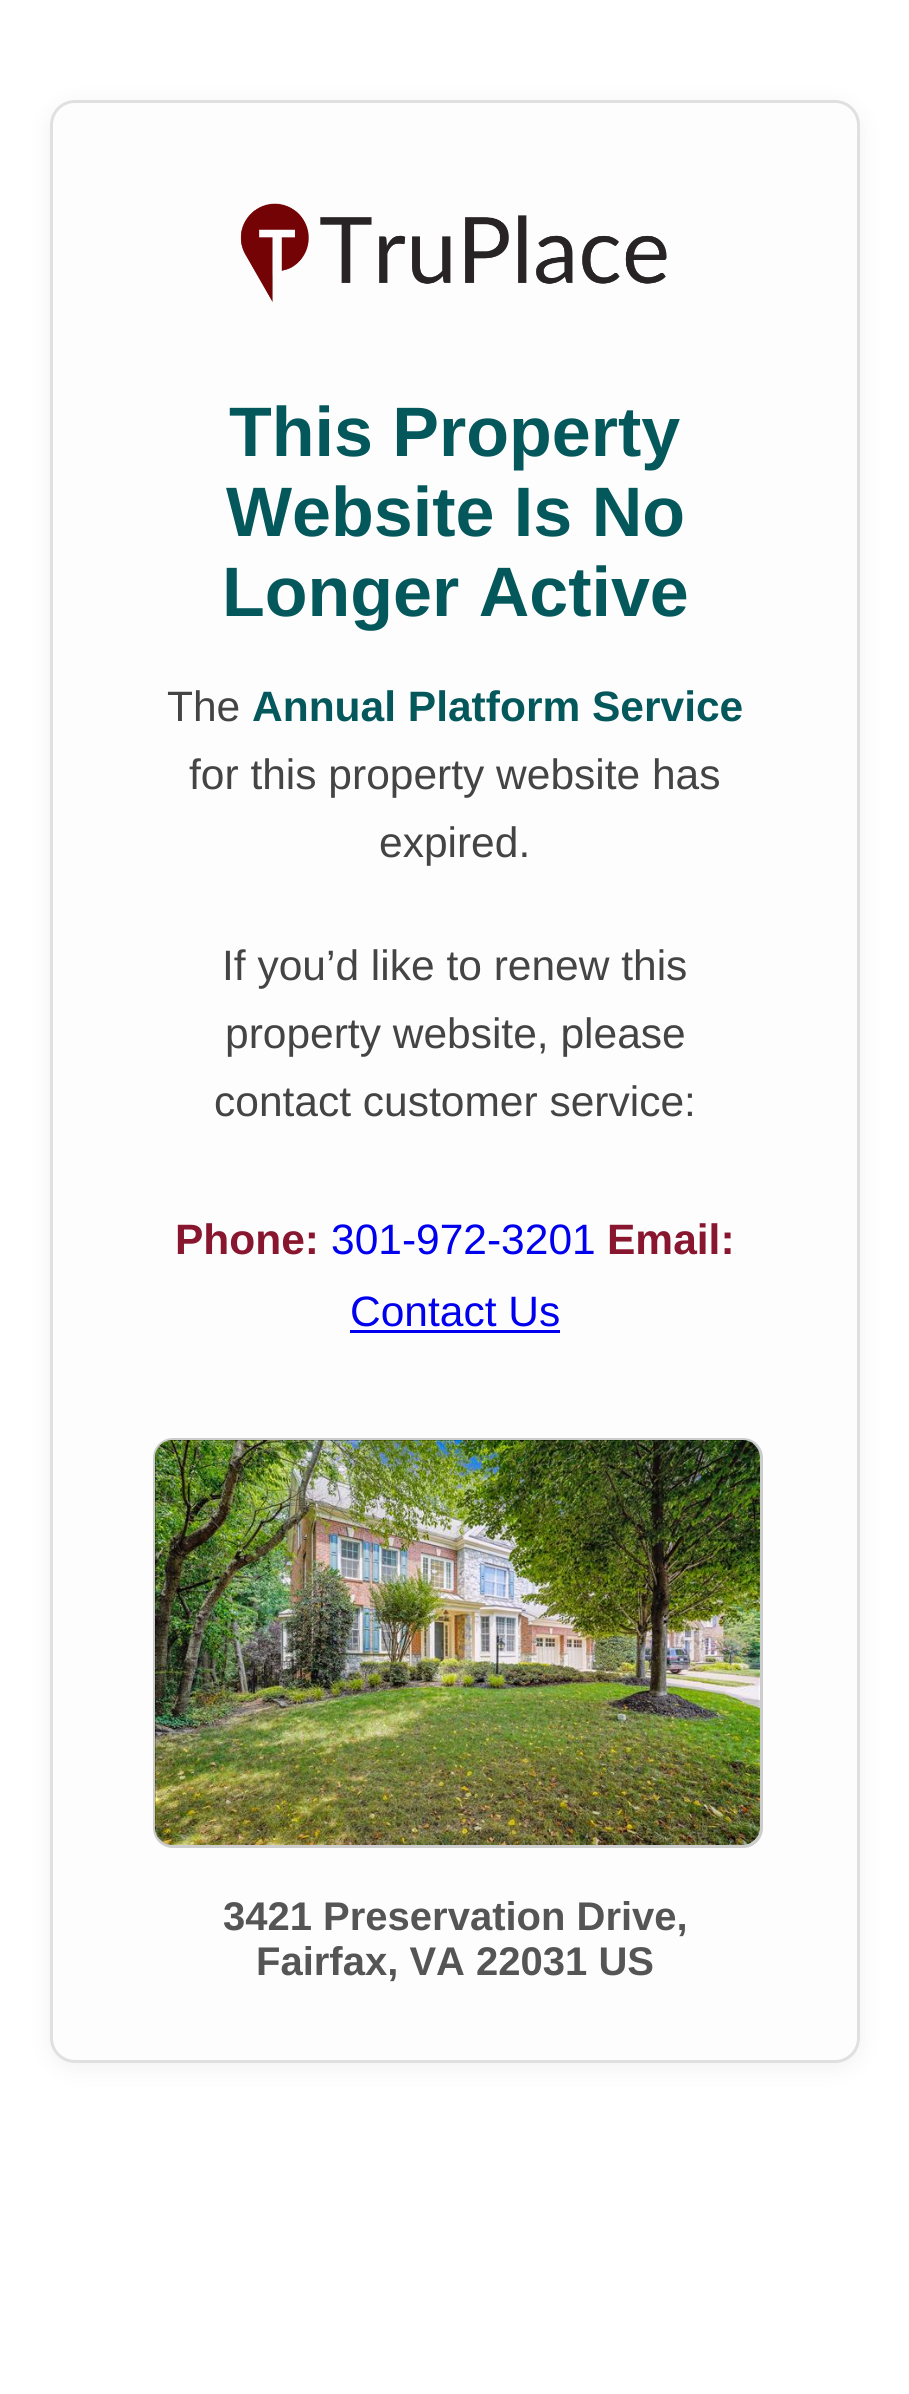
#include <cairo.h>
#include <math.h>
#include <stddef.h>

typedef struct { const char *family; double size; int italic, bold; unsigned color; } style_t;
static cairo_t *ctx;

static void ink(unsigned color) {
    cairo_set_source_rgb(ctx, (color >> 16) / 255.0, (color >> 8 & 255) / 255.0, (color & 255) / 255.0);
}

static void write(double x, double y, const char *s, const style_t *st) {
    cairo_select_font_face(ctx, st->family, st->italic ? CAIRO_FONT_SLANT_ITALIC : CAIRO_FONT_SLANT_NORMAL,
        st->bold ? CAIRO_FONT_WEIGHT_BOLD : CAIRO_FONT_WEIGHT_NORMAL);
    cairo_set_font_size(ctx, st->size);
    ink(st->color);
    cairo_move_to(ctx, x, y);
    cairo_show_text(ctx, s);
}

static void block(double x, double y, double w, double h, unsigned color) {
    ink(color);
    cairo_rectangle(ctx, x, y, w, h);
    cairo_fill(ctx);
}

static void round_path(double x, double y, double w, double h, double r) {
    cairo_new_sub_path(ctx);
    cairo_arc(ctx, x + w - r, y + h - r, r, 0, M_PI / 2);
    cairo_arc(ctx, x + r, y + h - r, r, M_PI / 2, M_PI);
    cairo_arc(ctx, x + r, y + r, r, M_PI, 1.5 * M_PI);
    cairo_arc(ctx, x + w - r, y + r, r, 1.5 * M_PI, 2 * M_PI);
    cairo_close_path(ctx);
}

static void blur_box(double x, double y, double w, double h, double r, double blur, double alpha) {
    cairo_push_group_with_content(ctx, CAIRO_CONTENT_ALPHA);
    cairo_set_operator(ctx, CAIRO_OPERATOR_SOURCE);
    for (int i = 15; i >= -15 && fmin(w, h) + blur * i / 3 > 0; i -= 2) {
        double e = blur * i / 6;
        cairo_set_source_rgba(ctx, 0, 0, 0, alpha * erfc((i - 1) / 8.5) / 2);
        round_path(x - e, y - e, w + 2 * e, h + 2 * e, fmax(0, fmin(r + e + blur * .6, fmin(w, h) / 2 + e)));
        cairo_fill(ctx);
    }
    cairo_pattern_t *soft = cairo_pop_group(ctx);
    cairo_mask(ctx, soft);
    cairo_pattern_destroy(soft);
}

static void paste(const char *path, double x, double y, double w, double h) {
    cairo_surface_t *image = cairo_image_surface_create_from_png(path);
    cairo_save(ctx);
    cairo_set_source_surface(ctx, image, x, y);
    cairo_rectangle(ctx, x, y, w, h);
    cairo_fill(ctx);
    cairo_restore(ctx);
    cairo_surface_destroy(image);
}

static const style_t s1 = {"Liberation Sans", 70, 0, 1, 0x04585c};
static const style_t s2 = {"Liberation Sans", 42.5, 0, 0, 0x444444};
static const style_t s3 = {"Liberation Sans", 42.5, 0, 1, 0x04585c};
static const style_t s4 = {"Liberation Sans", 42.5, 0, 1, 0x87162e};
static const style_t s5 = {"Liberation Sans", 42.5, 0, 0, 0x0000ee};
static const style_t s6 = {"Liberation Sans", 40, 0, 1, 0x555555};

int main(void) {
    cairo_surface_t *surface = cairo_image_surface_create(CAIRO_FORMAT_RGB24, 909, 2394);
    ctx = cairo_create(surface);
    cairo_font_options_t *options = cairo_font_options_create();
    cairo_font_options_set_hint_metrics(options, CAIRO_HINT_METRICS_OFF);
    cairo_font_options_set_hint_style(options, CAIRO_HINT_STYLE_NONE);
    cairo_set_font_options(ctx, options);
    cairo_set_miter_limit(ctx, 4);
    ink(0xffffff);
    cairo_paint(ctx);
    ink(0x000000);
    blur_box(50, 105, 810, 1963, 25, 12.5, 0.06);
    ink(0xfdfdfd);
    round_path(51.5, 101.5, 807, 1960, 23.5);
    cairo_fill_preserve(ctx);
    ink(0xe0e0e0);
    cairo_set_line_width(ctx, 3);
    cairo_stroke(ctx);
    paste("pic1.png", 240, 203, 427, 99);
    write(229, 456, "This Property", &s1);
    write(226, 536, "Website Is No", &s1);
    write(222, 616, "Longer Active", &s1);
    write(167, 721, "The", &s2);
    write(252, 721, "Annual Platform Service", &s3);
    write(189, 789, "for this property website has", &s2);
    write(379, 857, "expired.", &s2);
    write(222, 980, "If you’d like to renew this", &s2);
    write(225, 1048, "property website, please", &s2);
    write(214, 1116, "contact customer service:", &s2);
    write(175, 1254, "Phone:", &s4);
    write(331, 1254, "301-972-3201", &s5);
    write(607, 1254, "Email:", &s4);
    write(350, 1326, "Contact Us", &s5);
    block(350, 1330, 210, 3, 0x0000ee);
    round_path(154.5, 1439.5, 607, 407, 18.5);
    ink(0xcccccc);
    cairo_stroke(ctx);
    paste("pic2.png", 155, 1440, 605, 405);
    write(223, 1930, "3421 Preservation Drive,", &s6);
    write(256, 1975, "Fairfax, VA 22031 US", &s6);
    cairo_surface_write_to_png(surface, "screenshot.png");
    cairo_font_options_destroy(options);
    cairo_destroy(ctx);
    cairo_surface_destroy(surface);
    return 0;
}
